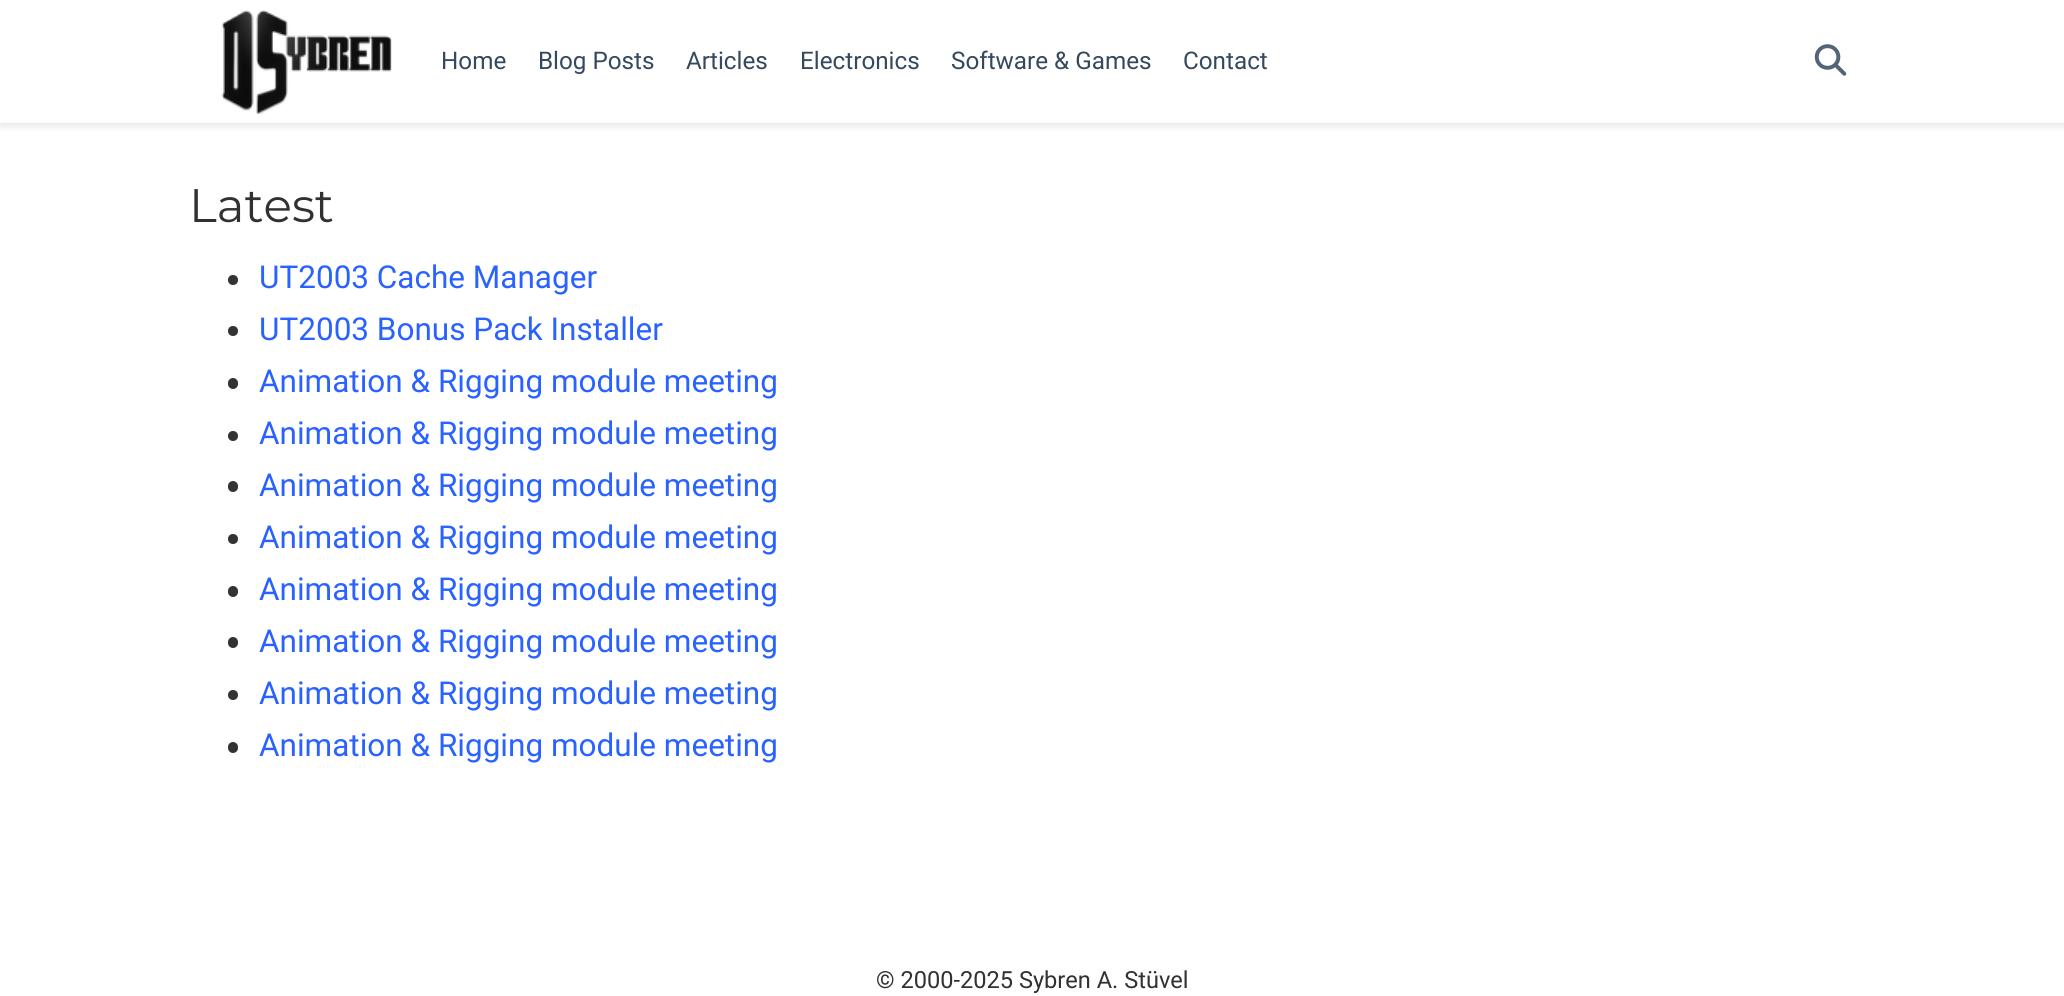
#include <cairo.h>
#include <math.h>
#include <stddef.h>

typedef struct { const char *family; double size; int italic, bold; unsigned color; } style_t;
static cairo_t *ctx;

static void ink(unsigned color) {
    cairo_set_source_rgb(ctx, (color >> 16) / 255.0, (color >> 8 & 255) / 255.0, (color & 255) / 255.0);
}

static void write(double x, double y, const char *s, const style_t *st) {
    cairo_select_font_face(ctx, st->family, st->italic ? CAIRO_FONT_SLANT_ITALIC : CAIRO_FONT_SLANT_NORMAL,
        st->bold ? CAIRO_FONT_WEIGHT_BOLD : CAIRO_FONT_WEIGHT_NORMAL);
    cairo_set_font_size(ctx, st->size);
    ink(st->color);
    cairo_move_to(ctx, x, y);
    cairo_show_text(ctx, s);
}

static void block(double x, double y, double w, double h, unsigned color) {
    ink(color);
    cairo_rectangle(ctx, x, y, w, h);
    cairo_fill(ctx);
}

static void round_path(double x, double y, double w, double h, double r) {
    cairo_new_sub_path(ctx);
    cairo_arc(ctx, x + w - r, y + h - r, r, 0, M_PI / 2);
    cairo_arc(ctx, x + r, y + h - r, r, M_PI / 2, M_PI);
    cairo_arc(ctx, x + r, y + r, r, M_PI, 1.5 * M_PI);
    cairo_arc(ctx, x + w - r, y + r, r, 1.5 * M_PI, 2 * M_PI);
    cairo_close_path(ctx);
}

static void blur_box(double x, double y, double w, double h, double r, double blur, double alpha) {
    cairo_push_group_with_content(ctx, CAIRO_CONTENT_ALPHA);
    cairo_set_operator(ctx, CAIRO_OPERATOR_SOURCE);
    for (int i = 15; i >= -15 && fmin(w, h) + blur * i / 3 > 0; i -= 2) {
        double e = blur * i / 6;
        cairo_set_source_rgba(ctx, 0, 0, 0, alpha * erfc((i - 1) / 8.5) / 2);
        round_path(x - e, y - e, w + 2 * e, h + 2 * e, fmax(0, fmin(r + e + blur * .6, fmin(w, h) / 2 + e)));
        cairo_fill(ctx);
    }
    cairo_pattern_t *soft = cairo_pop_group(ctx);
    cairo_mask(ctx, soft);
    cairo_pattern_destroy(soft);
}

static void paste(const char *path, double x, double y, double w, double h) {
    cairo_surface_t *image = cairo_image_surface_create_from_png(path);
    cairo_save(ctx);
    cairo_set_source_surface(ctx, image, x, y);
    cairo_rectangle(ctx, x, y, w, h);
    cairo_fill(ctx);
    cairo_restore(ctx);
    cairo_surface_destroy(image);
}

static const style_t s1 = {"Roboto", 24.25, 0, 0, 0x34495e};
static const style_t s2 = {"Montserrat", 47, 0, 0, 0x313131};
static const style_t s3 = {"Roboto", 31.5, 0, 0, 0x2962ff};
static const style_t s4 = {"Roboto", 23.6, 0, 0, 0x313131};

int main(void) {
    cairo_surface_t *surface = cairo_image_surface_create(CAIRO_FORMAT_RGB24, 2064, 996);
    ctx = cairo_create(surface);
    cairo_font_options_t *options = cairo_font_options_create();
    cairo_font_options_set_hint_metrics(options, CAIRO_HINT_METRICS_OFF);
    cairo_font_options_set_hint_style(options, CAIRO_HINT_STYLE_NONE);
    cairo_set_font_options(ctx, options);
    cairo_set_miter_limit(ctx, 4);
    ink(0xffffff);
    cairo_paint(ctx);
    ink(0x000000);
    blur_box(0, 4, 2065, 122, 0, 4, 0.11);
    block(0, 0, 2064, 123, 0xffffff);
    paste("pic1.png", 221, 10, 171, 104);
    write(441, 69, "Home", &s1);
    write(538, 69, "Blog Posts", &s1);
    write(686, 69, "Articles", &s1);
    write(800, 69, "Electronics", &s1);
    write(951, 69, "Software & Games", &s1);
    write(1183, 69, "Contact", &s1);
    paste("pic2.png", 1814, 44, 33, 32);
    write(189, 222, "Latest", &s2);
    ink(0x333333);
    cairo_new_path(ctx);
    cairo_arc(ctx, 233, 280, 5, 0, 2 * M_PI);
    cairo_fill(ctx);
    write(259, 288, "UT2003 Cache Manager", &s3);
    ink(0x333333);
    cairo_new_path(ctx);
    cairo_arc(ctx, 233, 331, 5, 0, 2 * M_PI);
    cairo_fill(ctx);
    write(259, 340, "UT2003 Bonus Pack Installer", &s3);
    ink(0x333333);
    round_path(228, 378, 10, 11, 5);
    cairo_fill(ctx);
    write(259, 392, "Animation & Rigging module meeting", &s3);
    ink(0x333333);
    cairo_new_path(ctx);
    cairo_arc(ctx, 233, 436, 5, 0, 2 * M_PI);
    cairo_fill(ctx);
    write(259, 444, "Animation & Rigging module meeting", &s3);
    ink(0x333333);
    round_path(228, 481, 10, 11, 5);
    cairo_fill(ctx);
    write(259, 496, "Animation & Rigging module meeting", &s3);
    ink(0x333333);
    cairo_new_path(ctx);
    cairo_arc(ctx, 233, 539, 5, 0, 2 * M_PI);
    cairo_fill(ctx);
    write(259, 548, "Animation & Rigging module meeting", &s3);
    ink(0x333333);
    round_path(228, 586, 10, 11, 5);
    cairo_fill(ctx);
    write(259, 600, "Animation & Rigging module meeting", &s3);
    ink(0x333333);
    round_path(228, 637, 10, 11, 5);
    cairo_fill(ctx);
    write(259, 652, "Animation & Rigging module meeting", &s3);
    ink(0x333333);
    cairo_new_path(ctx);
    cairo_arc(ctx, 233, 695, 5, 0, 2 * M_PI);
    cairo_fill(ctx);
    write(259, 704, "Animation & Rigging module meeting", &s3);
    ink(0x333333);
    round_path(228, 742, 10, 11, 5);
    cairo_fill(ctx);
    write(259, 756, "Animation & Rigging module meeting", &s3);
    write(876, 988, "© 2000-2025 Sybren A. Stüvel", &s4);
    cairo_surface_write_to_png(surface, "screenshot.png");
    cairo_font_options_destroy(options);
    cairo_destroy(ctx);
    cairo_surface_destroy(surface);
    return 0;
}
